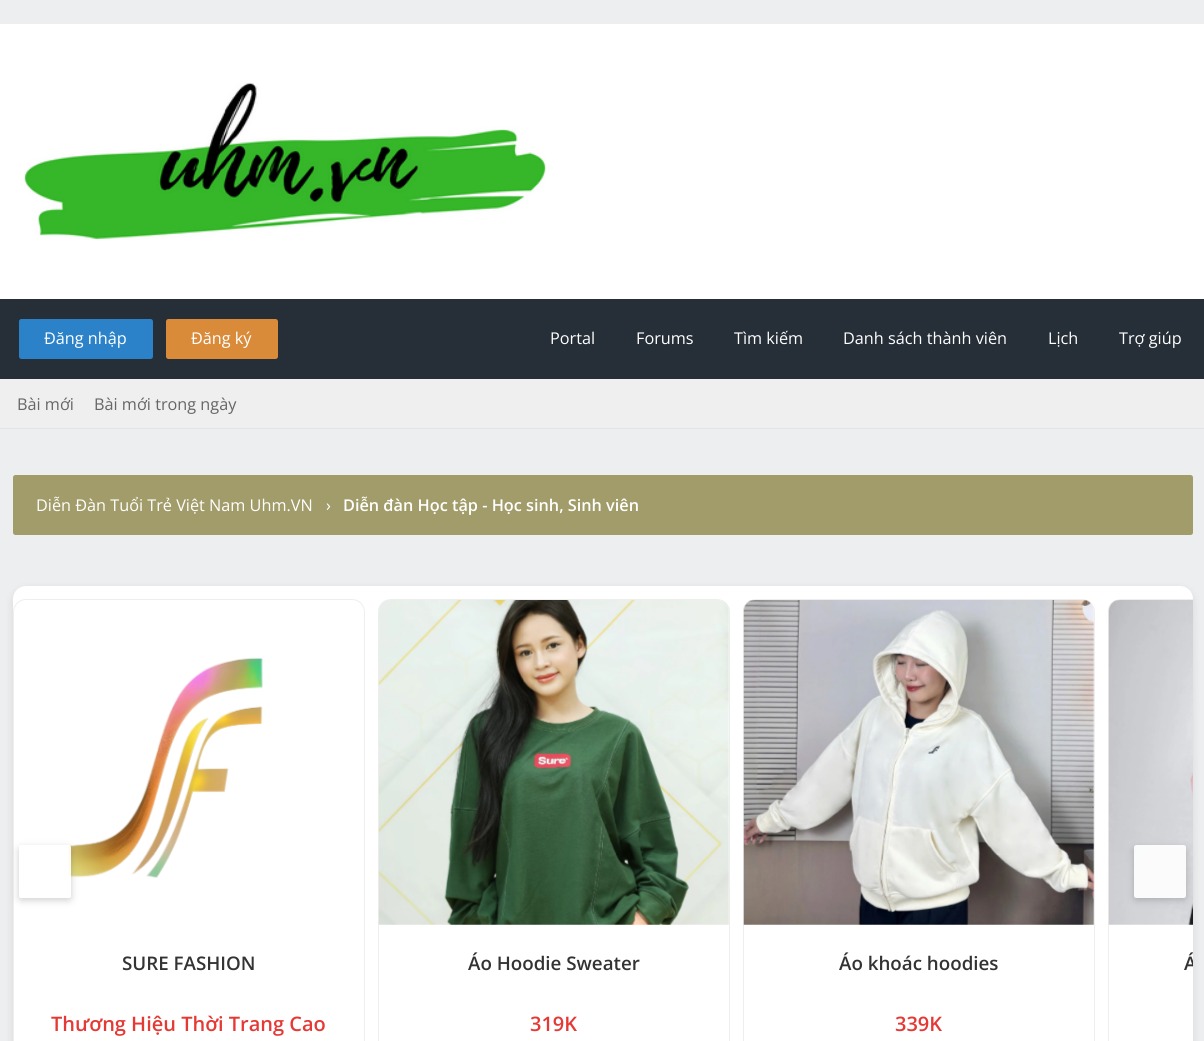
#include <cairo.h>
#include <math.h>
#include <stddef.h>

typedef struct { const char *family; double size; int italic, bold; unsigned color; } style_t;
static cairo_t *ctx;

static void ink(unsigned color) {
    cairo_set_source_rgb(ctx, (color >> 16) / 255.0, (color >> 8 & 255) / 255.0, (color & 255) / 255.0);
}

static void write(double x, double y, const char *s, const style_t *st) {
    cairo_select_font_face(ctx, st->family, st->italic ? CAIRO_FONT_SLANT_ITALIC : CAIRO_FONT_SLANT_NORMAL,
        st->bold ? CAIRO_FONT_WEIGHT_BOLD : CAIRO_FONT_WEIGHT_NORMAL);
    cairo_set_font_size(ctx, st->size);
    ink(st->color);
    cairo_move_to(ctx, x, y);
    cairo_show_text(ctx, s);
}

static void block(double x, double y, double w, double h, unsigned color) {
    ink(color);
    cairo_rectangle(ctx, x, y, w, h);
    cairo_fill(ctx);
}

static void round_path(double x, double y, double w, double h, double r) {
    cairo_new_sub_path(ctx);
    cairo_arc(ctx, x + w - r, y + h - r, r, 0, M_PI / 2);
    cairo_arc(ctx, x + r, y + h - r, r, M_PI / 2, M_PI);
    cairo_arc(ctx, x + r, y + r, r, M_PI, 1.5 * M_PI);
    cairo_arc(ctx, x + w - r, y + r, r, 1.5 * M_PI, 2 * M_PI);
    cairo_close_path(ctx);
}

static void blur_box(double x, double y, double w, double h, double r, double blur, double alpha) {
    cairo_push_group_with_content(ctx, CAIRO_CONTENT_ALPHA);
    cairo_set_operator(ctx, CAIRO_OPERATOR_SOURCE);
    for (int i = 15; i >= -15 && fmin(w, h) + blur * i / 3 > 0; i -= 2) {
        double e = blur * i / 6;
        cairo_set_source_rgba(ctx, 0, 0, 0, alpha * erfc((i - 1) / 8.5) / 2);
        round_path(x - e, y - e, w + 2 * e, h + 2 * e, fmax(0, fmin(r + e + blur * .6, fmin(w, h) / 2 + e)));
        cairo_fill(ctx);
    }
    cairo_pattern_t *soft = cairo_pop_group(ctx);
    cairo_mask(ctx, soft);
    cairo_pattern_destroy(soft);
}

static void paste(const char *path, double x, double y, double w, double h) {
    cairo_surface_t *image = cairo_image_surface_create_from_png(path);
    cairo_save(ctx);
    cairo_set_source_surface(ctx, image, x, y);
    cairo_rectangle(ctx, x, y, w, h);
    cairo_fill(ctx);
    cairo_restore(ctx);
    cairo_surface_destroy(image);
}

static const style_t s1 = {"Open Sans", 16.25, 0, 0, 0xffffff};
static const style_t s2 = {"Open Sans", 16.25, 0, 0, 0x666666};
static const style_t s3 = {"Open Sans SemiBold", 16.25, 0, 0, 0xffffff};
static const style_t s4 = {"Open Sans SemiBold", 18.75, 0, 0, 0x333333};
static const style_t s5 = {"Open Sans SemiBold", 20, 0, 0, 0xe53935};

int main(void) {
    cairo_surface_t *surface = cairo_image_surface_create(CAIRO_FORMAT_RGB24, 1204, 1041);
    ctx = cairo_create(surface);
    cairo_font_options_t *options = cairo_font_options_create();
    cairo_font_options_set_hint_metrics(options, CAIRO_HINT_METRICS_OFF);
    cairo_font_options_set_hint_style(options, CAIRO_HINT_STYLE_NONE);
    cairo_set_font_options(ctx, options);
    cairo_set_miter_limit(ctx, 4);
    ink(0xeceef0);
    cairo_paint(ctx);
    block(0, 24, 1204, 275, 0xffffff);
    paste("pic1.png", 24, 82, 522, 158);
    block(0, 299, 1204, 80, 0x262e38);
    ink(0x2c82c9);
    round_path(19, 319, 134, 40, 2.5);
    cairo_fill(ctx);
    write(44, 344, "Đăng nhập", &s1);
    ink(0xd98b3a);
    round_path(166, 319, 112, 40, 2.5);
    cairo_fill(ctx);
    write(191, 344, "Đăng ký", &s1);
    write(550, 344, "Portal", &s1);
    write(636, 344, "Forums", &s1);
    write(734, 344, "Tìm kiếm", &s1);
    write(843, 344, "Danh sách thành viên", &s1);
    write(1048, 344, "Lịch", &s1);
    write(1119, 344, "Trợ giúp", &s1);
    block(0, 379, 1204, 49, 0xefefef);
    block(0, 428, 1204, 1, 0xe3e3e3);
    write(17, 410, "Bài mới", &s2);
    write(94, 410, "Bài mới trong ngày", &s2);
    ink(0xa19c69);
    round_path(13, 475, 1180, 60, 2.5);
    cairo_fill(ctx);
    write(36, 511, "Diễn Đàn Tuổi Trẻ Việt Nam Uhm.VN", &s1);
    write(326, 511, "›", &s1);
    write(343, 511, "Diễn đàn Học tập - Học sinh, Sinh viên", &s3);
    ink(0x000000);
    blur_box(13, 589, 1180, 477, 13, 4, 0.1);
    ink(0xffffff);
    round_path(13, 586, 1180, 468, 13);
    cairo_fill(ctx);
    round_path(13.5, 599.5, 351, 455, 12.5);
    ink(0xeeeeee);
    cairo_set_line_width(ctx, 1);
    cairo_stroke(ctx);
    paste("pic2.png", 67, 657, 196, 221);
    cairo_save(ctx);
    cairo_set_fill_rule(ctx, CAIRO_FILL_RULE_EVEN_ODD);
    cairo_new_path(ctx);
    cairo_move_to(ctx, 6, 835);
    cairo_line_to(ctx, 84, 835);
    cairo_line_to(ctx, 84, 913);
    cairo_line_to(ctx, 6, 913);
    cairo_close_path(ctx);
    cairo_move_to(ctx, 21.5, 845);
    cairo_line_to(ctx, 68.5, 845);
    cairo_curve_to(ctx, 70, 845, 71, 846, 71, 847.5);
    cairo_line_to(ctx, 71, 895.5);
    cairo_curve_to(ctx, 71, 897, 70, 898, 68.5, 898);
    cairo_line_to(ctx, 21.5, 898);
    cairo_curve_to(ctx, 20, 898, 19, 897, 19, 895.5);
    cairo_line_to(ctx, 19, 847.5);
    cairo_curve_to(ctx, 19, 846, 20, 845, 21.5, 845);
    cairo_close_path(ctx);
    cairo_clip(ctx);
    ink(0x000000);
    blur_box(19, 848, 52, 52, 2.5, 4, 0.2);
    cairo_restore(ctx);
    cairo_set_source_rgba(ctx, 1, 1, 1, 0.9);
    round_path(19, 845, 52, 53, 2.5);
    cairo_fill(ctx);
    ink(0xeeeeee);
    cairo_new_path(ctx);
    cairo_move_to(ctx, 1121, 599);
    cairo_curve_to(ctx, 1114, 599, 1108, 605, 1108, 612);
    cairo_line_to(ctx, 1108, 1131);
    cairo_curve_to(ctx, 1108, 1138, 1114, 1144, 1121, 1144);
    cairo_line_to(ctx, 1193, 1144);
    cairo_line_to(ctx, 1193, 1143);
    cairo_line_to(ctx, 1121, 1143);
    cairo_curve_to(ctx, 1114, 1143, 1109, 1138, 1109, 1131);
    cairo_line_to(ctx, 1109, 612);
    cairo_curve_to(ctx, 1109, 605, 1114, 600, 1121, 600);
    cairo_line_to(ctx, 1193, 600);
    cairo_line_to(ctx, 1193, 599);
    cairo_close_path(ctx);
    cairo_fill(ctx);
    paste("pic5.png", 1108, 600, 85, 325);
    cairo_save(ctx);
    cairo_set_fill_rule(ctx, CAIRO_FILL_RULE_EVEN_ODD);
    cairo_new_path(ctx);
    cairo_move_to(ctx, 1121, 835);
    cairo_line_to(ctx, 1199, 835);
    cairo_line_to(ctx, 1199, 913);
    cairo_line_to(ctx, 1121, 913);
    cairo_close_path(ctx);
    cairo_move_to(ctx, 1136.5, 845);
    cairo_line_to(ctx, 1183.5, 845);
    cairo_curve_to(ctx, 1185, 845, 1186, 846, 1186, 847.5);
    cairo_line_to(ctx, 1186, 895.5);
    cairo_curve_to(ctx, 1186, 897, 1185, 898, 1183.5, 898);
    cairo_line_to(ctx, 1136.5, 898);
    cairo_curve_to(ctx, 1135, 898, 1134, 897, 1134, 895.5);
    cairo_line_to(ctx, 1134, 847.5);
    cairo_curve_to(ctx, 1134, 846, 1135, 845, 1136.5, 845);
    cairo_close_path(ctx);
    cairo_clip(ctx);
    ink(0x000000);
    blur_box(1134, 848, 52, 52, 2.5, 4, 0.2);
    cairo_restore(ctx);
    cairo_set_source_rgba(ctx, 1, 1, 1, 0.9);
    round_path(1134, 845, 52, 53, 2.5);
    cairo_fill(ctx);
    write(122, 970, "SURE FASHION", &s4);
    write(51, 1031, "Thương Hiệu Thời Trang Cao", &s5);
    round_path(378.5, 599.5, 351, 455, 12.5);
    ink(0xeeeeee);
    cairo_stroke(ctx);
    paste("pic3.png", 378, 600, 351, 325);
    write(468, 970, "Áo Hoodie Sweater", &s4);
    write(530, 1031, "319K", &s5);
    round_path(743.5, 599.5, 351, 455, 12.5);
    ink(0xeeeeee);
    cairo_stroke(ctx);
    paste("pic4.png", 743, 600, 351, 325);
    write(839, 970, "Áo khoác hoodies", &s4);
    write(895, 1031, "339K", &s5);
    cairo_save(ctx);
    round_path(13, 586, 1180, 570, 13);
    cairo_clip(ctx);
    write(1184, 970, "Á", &s4);
    cairo_restore(ctx);
    cairo_surface_write_to_png(surface, "screenshot.png");
    cairo_font_options_destroy(options);
    cairo_destroy(ctx);
    cairo_surface_destroy(surface);
    return 0;
}
